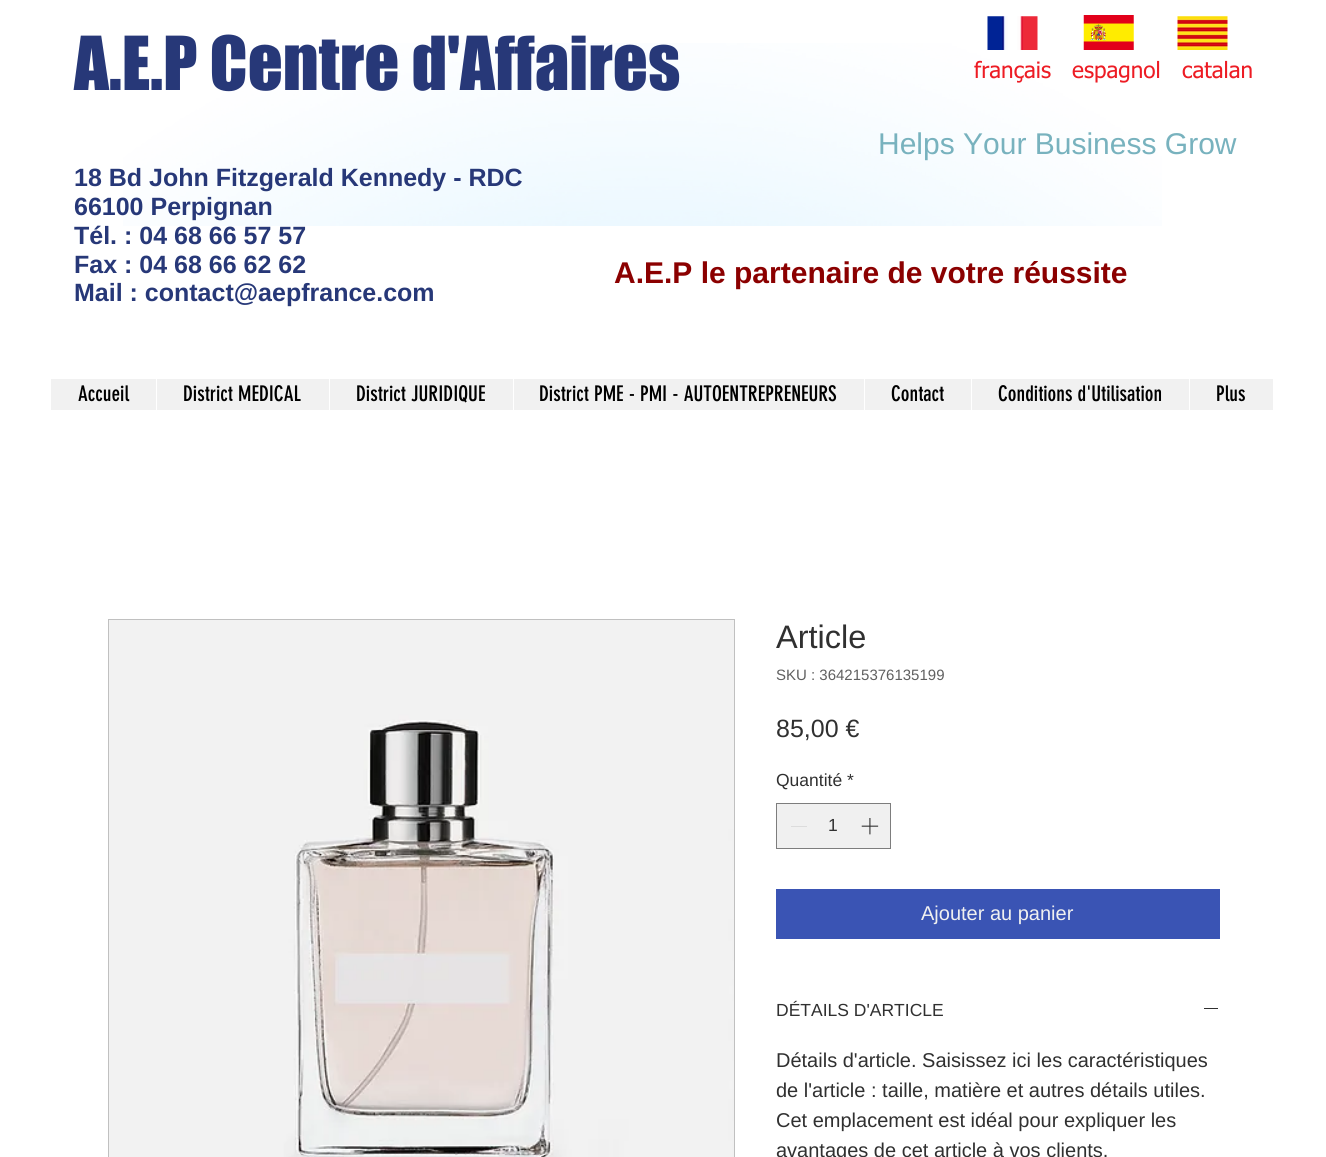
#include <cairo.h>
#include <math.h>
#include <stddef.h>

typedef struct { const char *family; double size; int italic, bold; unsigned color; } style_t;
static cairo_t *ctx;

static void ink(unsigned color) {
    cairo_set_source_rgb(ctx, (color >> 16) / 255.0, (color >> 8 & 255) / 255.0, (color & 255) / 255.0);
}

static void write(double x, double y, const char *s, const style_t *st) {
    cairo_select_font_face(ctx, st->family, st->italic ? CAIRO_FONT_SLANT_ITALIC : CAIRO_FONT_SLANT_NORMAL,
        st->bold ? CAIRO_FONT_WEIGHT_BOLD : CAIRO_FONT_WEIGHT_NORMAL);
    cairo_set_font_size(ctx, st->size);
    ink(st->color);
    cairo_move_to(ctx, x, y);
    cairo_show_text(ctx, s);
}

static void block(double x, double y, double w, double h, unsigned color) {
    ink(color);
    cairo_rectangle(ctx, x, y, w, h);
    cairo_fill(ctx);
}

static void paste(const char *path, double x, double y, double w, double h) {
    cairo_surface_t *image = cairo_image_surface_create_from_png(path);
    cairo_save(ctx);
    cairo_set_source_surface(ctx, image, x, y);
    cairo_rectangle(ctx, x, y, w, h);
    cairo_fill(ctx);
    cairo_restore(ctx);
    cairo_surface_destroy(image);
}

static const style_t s1 = {"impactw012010", 68.75, 0, 0, 0x273878};
static const style_t s2 = {"tahoma", 22.5, 0, 0, 0xed1c24};
static const style_t s3 = {"Liberation Sans", 30, 0, 0, 0x78b2be};
static const style_t s4 = {"Liberation Sans", 25, 0, 1, 0x273878};
static const style_t s5 = {"Liberation Sans", 30, 0, 1, 0x8b0000};
static const style_t s6 = {"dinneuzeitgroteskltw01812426", 21.25, 0, 0, 0x000000};
static const style_t s7 = {"Liberation Sans", 32.5, 0, 0, 0x303030};
static const style_t s8 = {"Liberation Sans", 15, 0, 0, 0x606060};
static const style_t s9 = {"Liberation Sans", 25, 0, 0, 0x303030};
static const style_t s10 = {"Liberation Sans", 17.5, 0, 0, 0x303030};
static const style_t s11 = {"Liberation Sans", 20, 0, 0, 0xf0f0f0};
static const style_t s12 = {"Liberation Sans", 20, 0, 0, 0x303030};

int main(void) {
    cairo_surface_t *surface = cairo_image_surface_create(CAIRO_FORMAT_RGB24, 1326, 1157);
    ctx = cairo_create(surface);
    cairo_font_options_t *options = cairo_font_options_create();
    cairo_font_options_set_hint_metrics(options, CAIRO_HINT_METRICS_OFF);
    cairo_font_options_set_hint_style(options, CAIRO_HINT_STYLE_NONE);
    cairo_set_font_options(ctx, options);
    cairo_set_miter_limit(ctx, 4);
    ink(0xffffff);
    cairo_paint(ctx);
    paste("pic4.png", 123, 43, 1039, 183);
    write(74, 90, "A.E.P Centre d'Affaires", &s1);
    paste("pic1.png", 987, 16, 51, 34);
    paste("pic2.png", 1083, 15, 51, 35);
    paste("pic3.png", 1177, 16, 51, 34);
    write(974, 78, "français   espagnol", &s2);
    write(1182, 78, "catalan", &s2);
    write(878, 154, "Helps Your Business Grow", &s3);
    write(74, 186, "18 Bd John Fitzgerald Kennedy - RDC", &s4);
    write(74, 215, "66100 Perpignan", &s4);
    write(74, 244, "Tél. : 04 68 66 57 57", &s4);
    write(74, 273, "Fax : 04 68 66 62 62", &s4);
    write(74, 301, "Mail : contact@aepfrance.com", &s4);
    write(614, 283, "A.E.P le partenaire de votre réussite", &s5);
    block(51, 379, 1222, 31, 0xf1f1f1);
    write(78, 401, "Accueil", &s6);
    block(156, 379, 1, 31, 0xffffff);
    write(183, 401, "District MEDICAL", &s6);
    block(329, 379, 1, 31, 0xffffff);
    write(356, 401, "District JURIDIQUE", &s6);
    block(513, 379, 1, 31, 0xffffff);
    write(539, 401, "District PME - PMI - AUTOENTREPRENEURS", &s6);
    block(864, 379, 1, 31, 0xffffff);
    write(891, 401, "Contact", &s6);
    block(971, 379, 1, 31, 0xffffff);
    write(998, 401, "Conditions d'Utilisation", &s6);
    block(1189, 379, 1, 31, 0xffffff);
    write(1216, 401, "Plus", &s6);
    cairo_rectangle(ctx, 108.5, 619.5, 626, 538);
    ink(0xc0c0c0);
    cairo_set_line_width(ctx, 1);
    cairo_stroke(ctx);
    paste("pic5.png", 109, 620, 625, 537);
    write(776, 648, "Article", &s7);
    write(776, 680, "SKU : 364215376135199", &s8);
    write(776, 737, "85,00 €", &s9);
    write(776, 786, "Quantité *", &s10);
    ink(0xf0f0f0);
    cairo_rectangle(ctx, 776.5, 803.5, 114, 45);
    cairo_fill_preserve(ctx);
    ink(0x7d7d7d);
    cairo_stroke(ctx);
    block(791, 826, 16, 1, 0xdcdcdc);
    write(828, 831, "1", &s10);
    paste("pic6.png", 861, 818, 18, 17);
    block(776, 889, 444, 50, 0x3a54b4);
    write(921, 920, "Ajouter au panier", &s11);
    write(776, 1016, "DÉTAILS D'ARTICLE", &s10);
    block(1204, 1008, 14, 1, 0x303030);
    write(776, 1067, "Détails d'article. Saisissez ici les caractéristiques", &s12);
    write(776, 1097, "de l'article : taille, matière et autres détails utiles.", &s12);
    write(776, 1127, "Cet emplacement est idéal pour expliquer les", &s12);
    write(776, 1157, "avantages de cet article à vos clients.", &s12);
    cairo_surface_write_to_png(surface, "screenshot.png");
    cairo_font_options_destroy(options);
    cairo_destroy(ctx);
    cairo_surface_destroy(surface);
    return 0;
}
